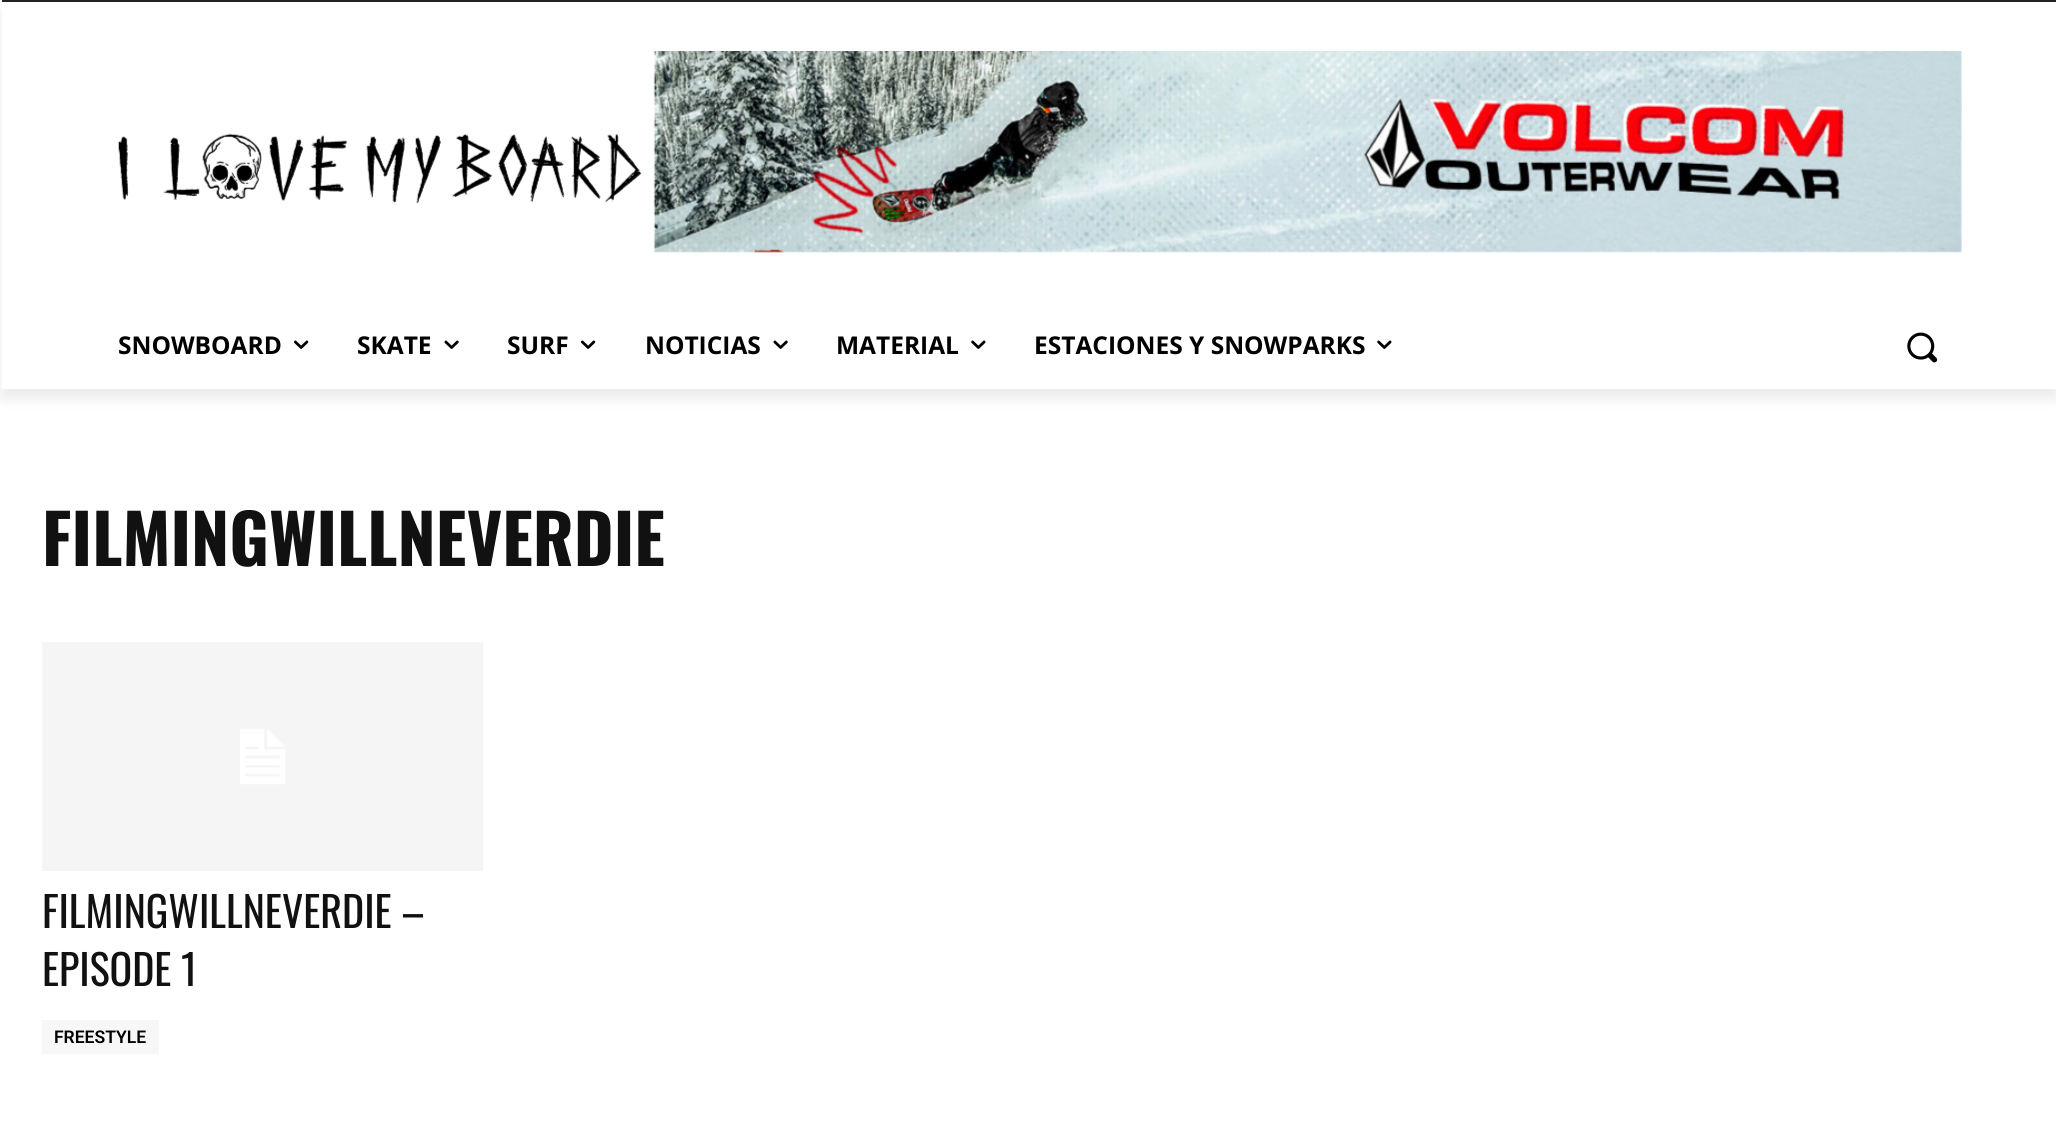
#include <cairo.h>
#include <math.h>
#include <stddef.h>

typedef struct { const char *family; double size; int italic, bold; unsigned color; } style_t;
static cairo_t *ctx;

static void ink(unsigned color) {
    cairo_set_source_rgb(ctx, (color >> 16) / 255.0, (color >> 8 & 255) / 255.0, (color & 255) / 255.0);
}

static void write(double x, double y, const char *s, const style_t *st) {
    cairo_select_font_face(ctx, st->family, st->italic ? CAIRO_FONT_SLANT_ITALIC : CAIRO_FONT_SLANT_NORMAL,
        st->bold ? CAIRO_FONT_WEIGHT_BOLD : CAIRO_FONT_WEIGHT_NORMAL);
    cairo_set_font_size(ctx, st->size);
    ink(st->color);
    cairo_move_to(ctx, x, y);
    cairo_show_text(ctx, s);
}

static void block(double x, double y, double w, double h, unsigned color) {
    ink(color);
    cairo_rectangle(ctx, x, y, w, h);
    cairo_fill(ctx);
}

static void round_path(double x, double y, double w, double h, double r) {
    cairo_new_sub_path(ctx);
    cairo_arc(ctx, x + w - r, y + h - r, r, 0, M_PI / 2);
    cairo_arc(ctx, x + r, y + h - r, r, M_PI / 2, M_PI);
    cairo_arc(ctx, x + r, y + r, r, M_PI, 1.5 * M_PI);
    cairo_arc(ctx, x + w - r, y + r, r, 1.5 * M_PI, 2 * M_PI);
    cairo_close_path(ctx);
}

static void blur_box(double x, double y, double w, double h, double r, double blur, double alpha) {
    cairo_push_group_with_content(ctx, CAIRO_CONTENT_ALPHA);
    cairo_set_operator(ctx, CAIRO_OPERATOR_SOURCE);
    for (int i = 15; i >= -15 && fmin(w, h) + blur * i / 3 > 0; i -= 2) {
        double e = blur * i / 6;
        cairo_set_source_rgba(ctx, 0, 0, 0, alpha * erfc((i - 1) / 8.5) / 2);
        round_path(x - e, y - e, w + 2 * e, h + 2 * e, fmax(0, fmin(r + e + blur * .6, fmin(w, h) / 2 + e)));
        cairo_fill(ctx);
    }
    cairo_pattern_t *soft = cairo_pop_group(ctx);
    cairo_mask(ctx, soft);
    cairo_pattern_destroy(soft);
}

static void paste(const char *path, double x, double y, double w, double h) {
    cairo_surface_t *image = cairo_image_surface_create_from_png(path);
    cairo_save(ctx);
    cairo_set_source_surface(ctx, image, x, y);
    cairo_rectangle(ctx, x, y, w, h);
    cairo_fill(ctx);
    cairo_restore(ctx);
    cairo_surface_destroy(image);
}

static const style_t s1 = {"Open Sans", 24.5, 0, 1, 0x000000};
static const style_t s2 = {"Oswald", 68.25, 0, 1, 0x111111};
static const style_t s3 = {"Oswald", 42, 0, 0, 0x111111};
static const style_t s4 = {"Roboto SemiBold", 17.5, 0, 0, 0x000000};

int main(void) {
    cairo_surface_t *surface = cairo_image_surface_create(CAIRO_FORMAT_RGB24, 2056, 1132);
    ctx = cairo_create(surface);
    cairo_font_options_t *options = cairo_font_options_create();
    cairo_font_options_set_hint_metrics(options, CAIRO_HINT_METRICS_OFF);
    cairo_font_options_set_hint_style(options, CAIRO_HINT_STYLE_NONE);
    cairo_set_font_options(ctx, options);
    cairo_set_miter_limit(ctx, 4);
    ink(0xffffff);
    cairo_paint(ctx);
    block(2, 0, 2054, 2, 0x222222);
    paste("pic1.png", 118, 133, 524, 71);
    paste("pic2.png", 653, 51, 1309, 202);
    cairo_save(ctx);
    cairo_set_fill_rule(ctx, CAIRO_FILL_RULE_EVEN_ODD);
    cairo_new_path(ctx);
    cairo_move_to(ctx, 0, 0);
    cairo_line_to(ctx, 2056, 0);
    cairo_line_to(ctx, 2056, 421);
    cairo_line_to(ctx, 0, 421);
    cairo_close_path(ctx);
    cairo_move_to(ctx, 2, 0);
    cairo_line_to(ctx, 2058, 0);
    cairo_line_to(ctx, 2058, 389);
    cairo_line_to(ctx, 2, 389);
    cairo_close_path(ctx);
    cairo_clip(ctx);
    ink(0x000000);
    blur_box(2, 11, 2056, 388, 0, 7, 0.08);
    cairo_restore(ctx);
    write(118, 354, "SNOWBOARD", &s1);
    paste("pic3.png", 294, 340, 15, 9);
    write(357, 354, "SKATE", &s1);
    paste("pic4.png", 444, 340, 15, 9);
    write(507, 354, "SURF", &s1);
    paste("pic3.png", 581, 340, 15, 9);
    write(645, 354, "NOTICIAS", &s1);
    paste("pic4.png", 773, 340, 15, 9);
    write(836, 354, "MATERIAL", &s1);
    paste("pic5.png", 971, 340, 15, 9);
    write(1034, 354, "ESTACIONES Y SNOWPARKS", &s1);
    paste("pic5.png", 1377, 340, 15, 9);
    paste("pic6.png", 1907, 332, 31, 31);
    write(42, 566, "FILMINGWILLNEVERDIE", &s2);
    paste("pic7.png", 42, 642, 441, 229);
    write(42, 928, "FILMINGWILLNEVERDIE –", &s3);
    write(42, 986, "EPISODE 1", &s3);
    block(42, 1020, 117, 34, 0xf7f7f7);
    write(54, 1043, "FREESTYLE", &s4);
    cairo_surface_write_to_png(surface, "screenshot.png");
    cairo_font_options_destroy(options);
    cairo_destroy(ctx);
    cairo_surface_destroy(surface);
    return 0;
}
